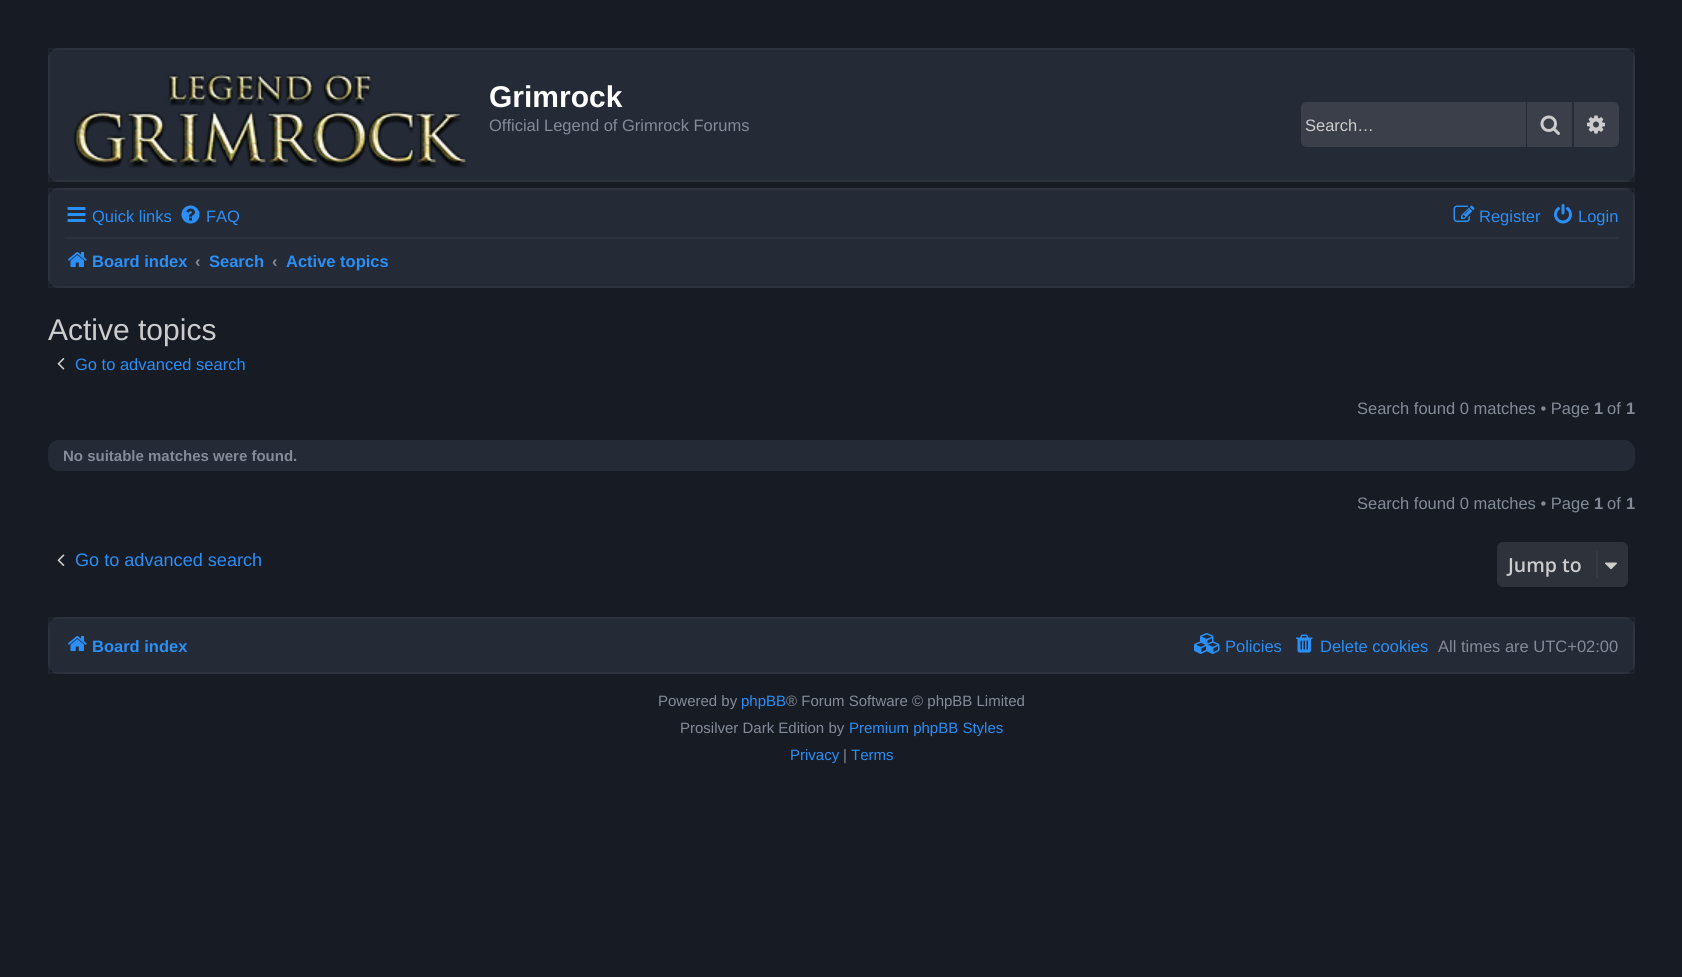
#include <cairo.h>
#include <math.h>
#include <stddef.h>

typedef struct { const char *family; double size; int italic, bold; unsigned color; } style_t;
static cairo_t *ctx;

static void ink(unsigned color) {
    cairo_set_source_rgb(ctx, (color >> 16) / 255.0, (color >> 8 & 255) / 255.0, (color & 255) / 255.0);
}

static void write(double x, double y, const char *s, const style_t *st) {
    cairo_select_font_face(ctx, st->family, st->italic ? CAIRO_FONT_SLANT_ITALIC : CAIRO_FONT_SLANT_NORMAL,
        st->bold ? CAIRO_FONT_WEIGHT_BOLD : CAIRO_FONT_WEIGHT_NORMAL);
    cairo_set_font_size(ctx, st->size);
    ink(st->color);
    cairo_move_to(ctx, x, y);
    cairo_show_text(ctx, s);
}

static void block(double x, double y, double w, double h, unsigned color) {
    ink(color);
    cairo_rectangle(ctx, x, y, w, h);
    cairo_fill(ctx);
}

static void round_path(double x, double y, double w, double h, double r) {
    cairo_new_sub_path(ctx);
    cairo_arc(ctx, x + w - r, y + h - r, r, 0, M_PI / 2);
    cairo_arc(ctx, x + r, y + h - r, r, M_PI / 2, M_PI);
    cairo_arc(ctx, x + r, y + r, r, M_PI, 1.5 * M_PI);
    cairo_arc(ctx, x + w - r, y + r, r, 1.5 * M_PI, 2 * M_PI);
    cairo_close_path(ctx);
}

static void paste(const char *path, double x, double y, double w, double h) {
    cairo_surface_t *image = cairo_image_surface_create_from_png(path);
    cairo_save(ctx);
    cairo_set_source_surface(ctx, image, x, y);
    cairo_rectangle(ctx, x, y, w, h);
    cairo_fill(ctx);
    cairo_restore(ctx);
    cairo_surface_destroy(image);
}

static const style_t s1 = {"Liberation Sans", 30, 0, 1, 0xffffff};
static const style_t s2 = {"Liberation Sans", 16.5, 0, 0, 0x838b98};
static const style_t s3 = {"Liberation Sans", 16.5, 0, 0, 0xcccccc};
static const style_t s4 = {"Liberation Sans", 16.5, 0, 0, 0x2a8ff7};
static const style_t s5 = {"Liberation Sans", 16.5, 0, 1, 0x2a8ff7};
static const style_t s6 = {"Liberation Sans", 16.5, 0, 1, 0x838b98};
static const style_t s7 = {"Liberation Sans", 30, 0, 0, 0xcccccc};
static const style_t s8 = {"Liberation Sans", 15, 0, 1, 0x838b98};
static const style_t s9 = {"Liberation Sans", 18.1, 0, 0, 0x2a8ff7};
static const style_t s10 = {"Open Sans SemiBold", 19.5, 0, 0, 0xcccccc};
static const style_t s11 = {"Liberation Sans", 15, 0, 0, 0x838b98};
static const style_t s12 = {"Liberation Sans", 15, 0, 0, 0x2a8ff7};

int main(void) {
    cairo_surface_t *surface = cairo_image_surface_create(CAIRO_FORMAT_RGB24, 1682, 977);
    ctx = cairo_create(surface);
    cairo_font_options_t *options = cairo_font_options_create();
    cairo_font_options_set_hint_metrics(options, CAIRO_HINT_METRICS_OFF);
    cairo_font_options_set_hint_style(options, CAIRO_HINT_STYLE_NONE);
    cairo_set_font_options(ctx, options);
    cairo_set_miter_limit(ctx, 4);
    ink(0x171b24);
    cairo_paint(ctx);
    ink(0x242a36);
    round_path(48, 48, 1587, 134, 11);
    cairo_fill(ctx);
    cairo_rectangle(ctx, 49, 49, 1585, 132);
    cairo_set_source_rgba(ctx, 1, 1, 1, 0.04);
    cairo_stroke(ctx);
    paste("pic1.png", 73, 73, 394, 96);
    write(489, 107, "Grimrock", &s1);
    write(489, 131, "Official Legend of Grimrock Forums", &s2);
    ink(0x3a3f4a);
    cairo_new_path(ctx);
    cairo_move_to(ctx, 1307, 102);
    cairo_line_to(ctx, 1526, 102);
    cairo_line_to(ctx, 1526, 147);
    cairo_line_to(ctx, 1307, 147);
    cairo_curve_to(ctx, 1303.5, 147, 1301, 144.5, 1301, 141);
    cairo_line_to(ctx, 1301, 108);
    cairo_curve_to(ctx, 1301, 104.5, 1303.5, 102, 1307, 102);
    cairo_close_path(ctx);
    cairo_fill(ctx);
    write(1305, 131, "Search…", &s3);
    block(1527, 102, 45, 45, 0x3a3f4a);
    paste("pic2.png", 1540, 115, 20, 20);
    cairo_new_path(ctx);
    cairo_move_to(ctx, 1574, 102);
    cairo_line_to(ctx, 1613, 102);
    cairo_curve_to(ctx, 1616.5, 102, 1619, 104.5, 1619, 108);
    cairo_line_to(ctx, 1619, 141);
    cairo_curve_to(ctx, 1619, 144.5, 1616.5, 147, 1613, 147);
    cairo_line_to(ctx, 1574, 147);
    cairo_close_path(ctx);
    cairo_fill(ctx);
    paste("pic3.png", 1587, 115, 18, 19);
    ink(0x242a36);
    round_path(48, 188, 1587, 100, 11);
    cairo_fill(ctx);
    cairo_rectangle(ctx, 49, 189, 1585, 98);
    cairo_set_source_rgba(ctx, 1, 1, 1, 0.04);
    cairo_stroke(ctx);
    paste("pic4.png", 67, 207, 19, 15);
    write(92, 222, "Quick links", &s4);
    paste("pic5.png", 181, 205, 19, 19);
    write(206, 222, "FAQ", &s4);
    paste("pic6.png", 1453, 205, 22, 17);
    write(1479, 222, "Register", &s4);
    paste("pic7.png", 1554, 204, 18, 20);
    write(1578, 222, "Login", &s4);
    block(65, 237, 1554, 2, 0x2d333e);
    paste("pic8.png", 67, 252, 20, 15);
    write(92, 267, "Board index", &s5);
    write(195, 267, "‹", &s6);
    write(209, 267, "Search", &s5);
    write(272, 267, "‹", &s6);
    write(286, 267, "Active topics", &s5);
    write(48, 340, "Active topics", &s7);
    paste("pic9.png", 57, 358, 8, 12);
    write(75, 370, "Go to advanced search", &s4);
    write(1357, 414, "Search found 0 matches • Page", &s2);
    write(1594, 414, "1", &s6);
    write(1607, 414, "of", &s2);
    write(1626, 414, "1", &s6);
    ink(0x242a36);
    round_path(48, 440, 1587, 31, 11);
    cairo_fill(ctx);
    write(63, 461, "No suitable matches were found.", &s8);
    write(1357, 509, "Search found 0 matches • Page", &s2);
    write(1594, 509, "1", &s6);
    write(1607, 509, "of", &s2);
    write(1626, 509, "1", &s6);
    paste("pic10.png", 57, 554, 8, 12);
    write(75, 566, "Go to advanced search", &s9);
    ink(0x2e323a);
    round_path(1497, 542, 131, 45, 6);
    cairo_fill(ctx);
    write(1508, 572, "Jump to", &s10);
    block(1596, 551, 2, 27, 0x363a42);
    paste("pic11.png", 1605, 562, 12, 8);
    ink(0x242a36);
    round_path(48, 617, 1587, 57, 11);
    cairo_fill(ctx);
    cairo_rectangle(ctx, 49, 618, 1585, 55);
    cairo_set_source_rgba(ctx, 1, 1, 1, 0.04);
    cairo_stroke(ctx);
    paste("pic8.png", 67, 636, 20, 15);
    write(92, 652, "Board index", &s5);
    paste("pic12.png", 1194, 633, 26, 21);
    write(1225, 652, "Policies", &s4);
    paste("pic13.png", 1296, 634, 17, 19);
    write(1320, 652, "Delete cookies", &s4);
    write(1438, 652, "All times are UTC+02:00", &s2);
    write(658, 706, "Powered by", &s11);
    write(741, 706, "phpBB", &s12);
    write(786, 706, "® Forum Software © phpBB Limited", &s11);
    write(680, 733, "Prosilver Dark Edition by", &s11);
    write(849, 733, "Premium phpBB Styles", &s12);
    write(790, 760, "Privacy", &s12);
    write(843, 760, "|", &s11);
    write(851, 760, "Terms", &s12);
    cairo_surface_write_to_png(surface, "screenshot.png");
    cairo_font_options_destroy(options);
    cairo_destroy(ctx);
    cairo_surface_destroy(surface);
    return 0;
}
